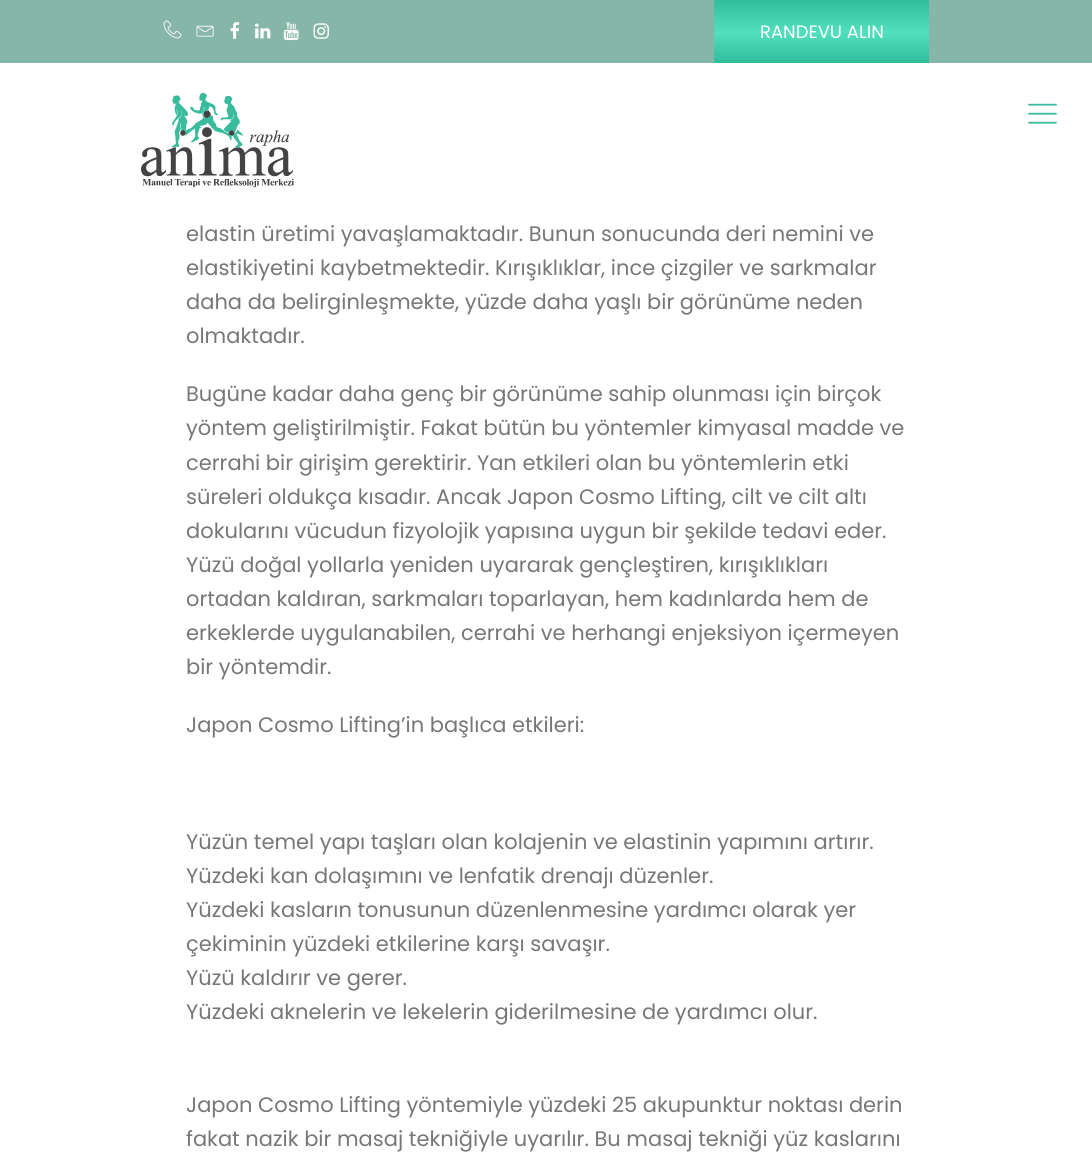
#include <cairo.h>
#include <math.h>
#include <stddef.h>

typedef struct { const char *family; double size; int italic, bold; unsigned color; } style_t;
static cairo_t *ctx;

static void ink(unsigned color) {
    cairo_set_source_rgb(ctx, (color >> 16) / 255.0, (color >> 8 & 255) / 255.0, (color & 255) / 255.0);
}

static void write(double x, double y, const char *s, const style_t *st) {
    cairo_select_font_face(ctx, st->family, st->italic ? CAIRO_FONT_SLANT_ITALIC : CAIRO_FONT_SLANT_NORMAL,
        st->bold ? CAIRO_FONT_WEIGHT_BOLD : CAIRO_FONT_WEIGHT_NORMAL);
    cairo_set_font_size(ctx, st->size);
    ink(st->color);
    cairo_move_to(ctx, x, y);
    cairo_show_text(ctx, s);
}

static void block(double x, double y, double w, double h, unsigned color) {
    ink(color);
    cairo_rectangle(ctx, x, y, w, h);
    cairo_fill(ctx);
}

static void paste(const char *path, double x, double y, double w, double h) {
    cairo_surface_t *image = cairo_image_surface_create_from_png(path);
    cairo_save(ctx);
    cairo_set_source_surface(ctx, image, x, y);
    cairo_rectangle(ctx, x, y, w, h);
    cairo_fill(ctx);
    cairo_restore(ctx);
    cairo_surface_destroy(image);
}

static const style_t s1 = {"Poppins", 18, 0, 0, 0xffffff};
static const style_t s2 = {"Poppins", 21, 0, 0, 0x777777};

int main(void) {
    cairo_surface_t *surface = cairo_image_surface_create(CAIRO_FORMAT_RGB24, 1092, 1168);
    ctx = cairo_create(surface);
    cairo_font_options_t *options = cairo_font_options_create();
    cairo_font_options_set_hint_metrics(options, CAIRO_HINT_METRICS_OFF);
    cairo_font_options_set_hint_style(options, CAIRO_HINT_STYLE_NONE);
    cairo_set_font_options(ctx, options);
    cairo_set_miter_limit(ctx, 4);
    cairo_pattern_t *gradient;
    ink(0xffffff);
    cairo_paint(ctx);
    block(0, 0, 1092, 63, 0x86b6a7);
    paste("pic1.png", 163, 20, 19, 19);
    paste("pic2.png", 196, 25, 18, 12);
    paste("pic3.png", 230, 22, 10, 17);
    paste("pic4.png", 255, 23, 16, 16);
    paste("pic5.png", 283, 22, 16, 19);
    paste("pic6.png", 313, 23, 16, 16);
    gradient = cairo_pattern_create_linear(821, 63, 821, 0);
    cairo_pattern_add_color_stop_rgba(gradient, 0, 0.192, 0.741, 0.608, 1);
    cairo_pattern_add_color_stop_rgba(gradient, 0.49, 0.318, 0.875, 0.741, 1);
    cairo_pattern_add_color_stop_rgba(gradient, 1, 0.192, 0.741, 0.608, 1);
    cairo_set_source(ctx, gradient);
    cairo_pattern_destroy(gradient);
    cairo_rectangle(ctx, 714, 0, 215, 63);
    cairo_fill(ctx);
    write(760, 38, "RANDEVU ALIN", &s1);
    paste("pic7.png", 141, 93, 153, 95);
    paste("pic8.png", 1028, 103, 29, 21);
    write(186, 241, "elastin üretimi yavaşlamaktadır. Bunun sonucunda deri nemini ve", &s2);
    write(186, 275, "elastikiyetini kaybetmektedir. Kırışıklıklar, ince çizgiler ve sarkmalar", &s2);
    write(186, 309, "daha da belirginleşmekte, yüzde daha yaşlı bir görünüme neden", &s2);
    write(186, 343, "olmaktadır.", &s2);
    write(186, 401, "Bugüne kadar daha genç bir görünüme sahip olunması için birçok", &s2);
    write(186, 435, "yöntem geliştirilmiştir. Fakat bütün bu yöntemler kimyasal madde ve", &s2);
    write(186, 470, "cerrahi bir girişim gerektirir. Yan etkileri olan bu yöntemlerin etki", &s2);
    write(186, 504, "süreleri oldukça kısadır. Ancak Japon Cosmo Lifting, cilt ve cilt altı", &s2);
    write(186, 538, "dokularını vücudun fizyolojik yapısına uygun bir şekilde tedavi eder.", &s2);
    write(186, 572, "Yüzü doğal yollarla yeniden uyararak gençleştiren, kırışıklıkları", &s2);
    write(186, 606, "ortadan kaldıran, sarkmaları toparlayan, hem kadınlarda hem de", &s2);
    write(186, 640, "erkeklerde uygulanabilen, cerrahi ve herhangi enjeksiyon içermeyen", &s2);
    write(186, 674, "bir yöntemdir.", &s2);
    write(186, 732, "Japon Cosmo Lifting’in başlıca etkileri:", &s2);
    write(186, 849, "Yüzün temel yapı taşları olan kolajenin ve elastinin yapımını artırır.", &s2);
    write(186, 883, "Yüzdeki kan dolaşımını ve lenfatik drenajı düzenler.", &s2);
    write(186, 917, "Yüzdeki kasların tonusunun düzenlenmesine yardımcı olarak yer", &s2);
    write(186, 951, "çekiminin yüzdeki etkilerine karşı savaşır.", &s2);
    write(186, 985, "Yüzü kaldırır ve gerer.", &s2);
    write(186, 1019, "Yüzdeki aknelerin ve lekelerin giderilmesine de yardımcı olur.", &s2);
    write(186, 1112, "Japon Cosmo Lifting yöntemiyle yüzdeki 25 akupunktur noktası derin", &s2);
    write(186, 1146, "fakat nazik bir masaj tekniğiyle uyarılır. Bu masaj tekniği yüz kaslarını", &s2);
    cairo_surface_write_to_png(surface, "screenshot.png");
    cairo_font_options_destroy(options);
    cairo_destroy(ctx);
    cairo_surface_destroy(surface);
    return 0;
}
